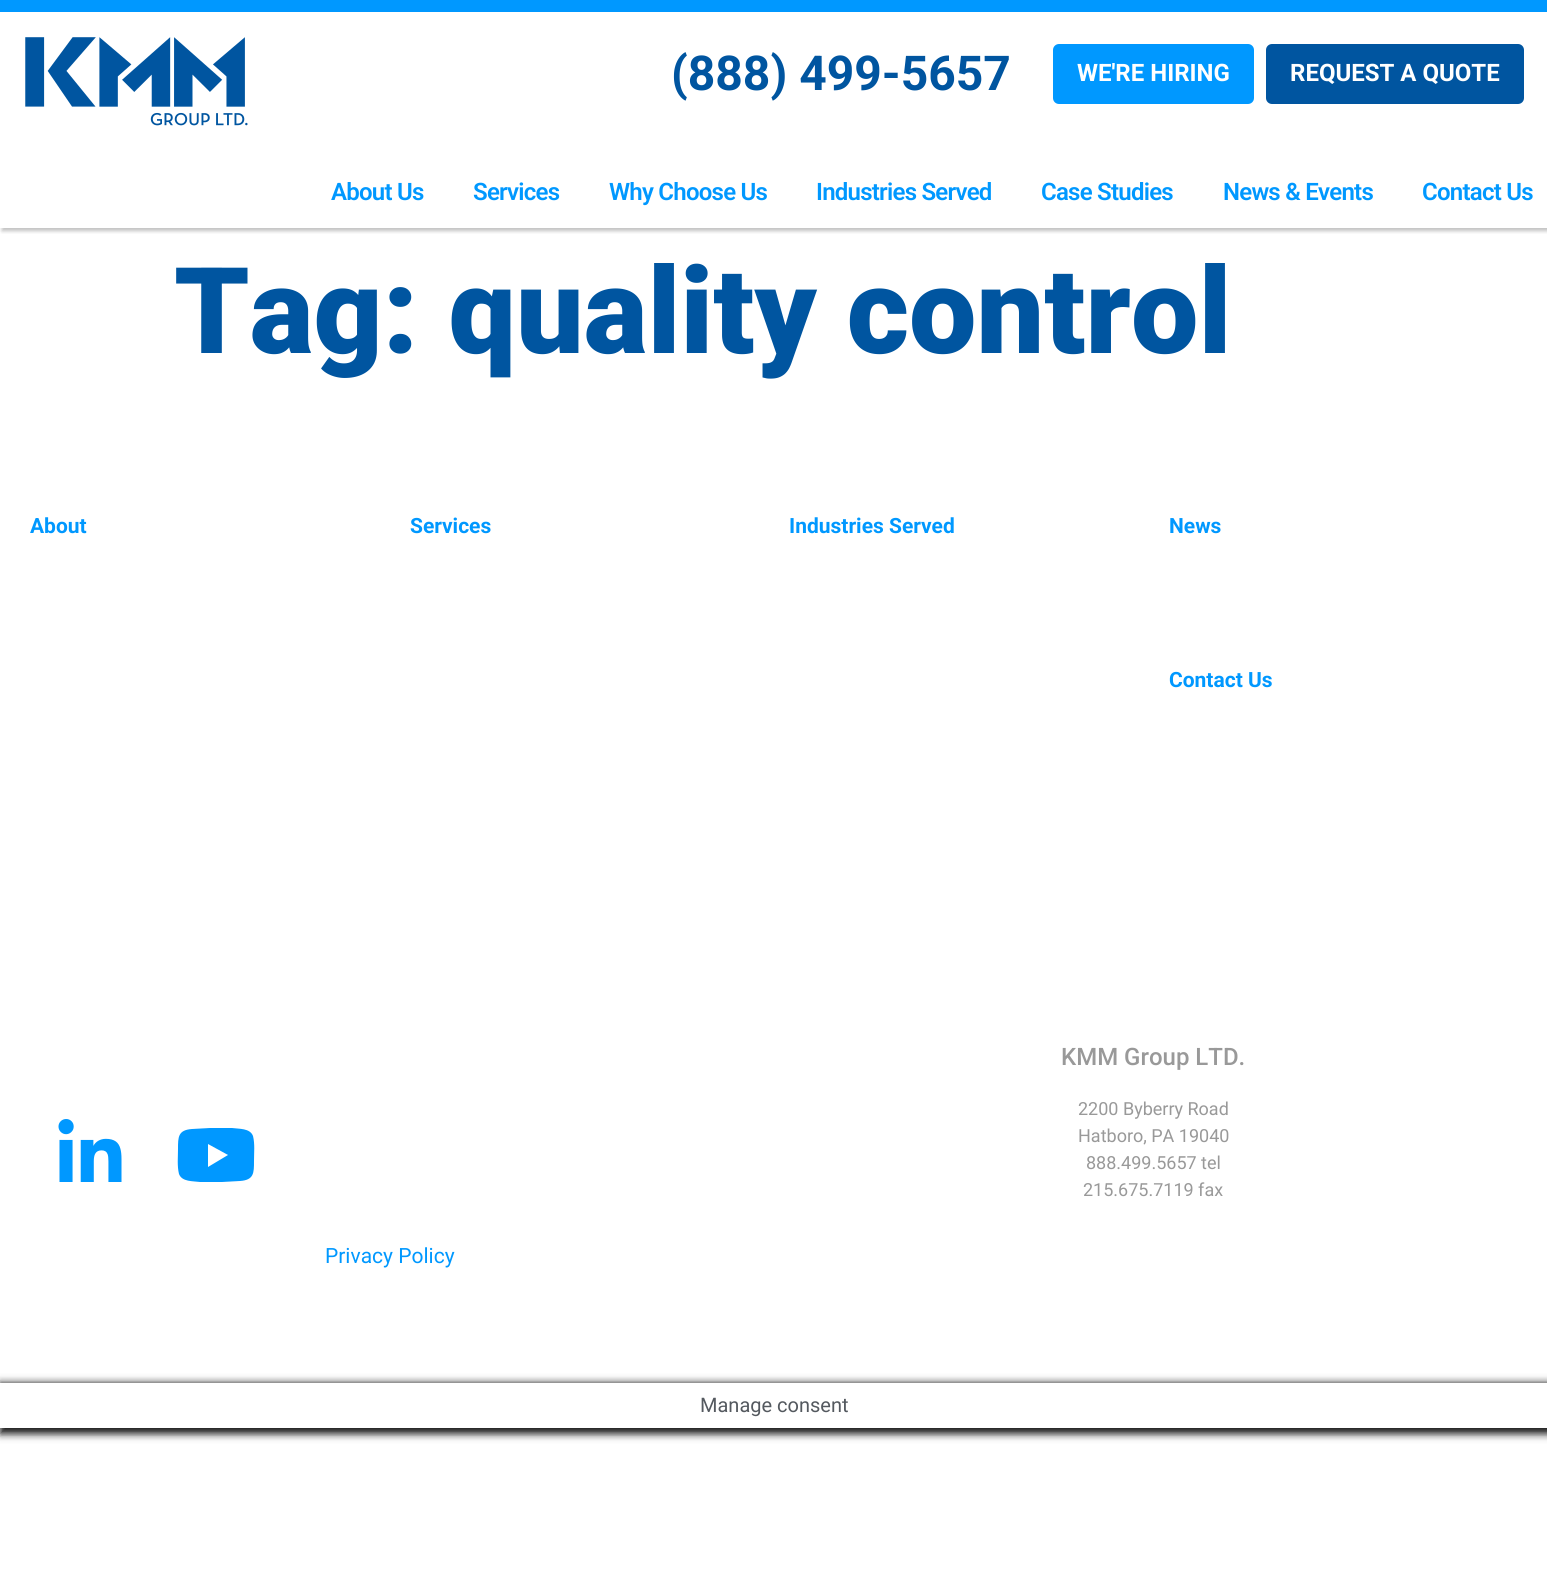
#include <cairo.h>
#include <math.h>
#include <stddef.h>

typedef struct { const char *family; double size; int italic, bold; unsigned color; } style_t;
static cairo_t *ctx;

static void ink(unsigned color) {
    cairo_set_source_rgb(ctx, (color >> 16) / 255.0, (color >> 8 & 255) / 255.0, (color & 255) / 255.0);
}

static void write(double x, double y, const char *s, const style_t *st) {
    cairo_select_font_face(ctx, st->family, st->italic ? CAIRO_FONT_SLANT_ITALIC : CAIRO_FONT_SLANT_NORMAL,
        st->bold ? CAIRO_FONT_WEIGHT_BOLD : CAIRO_FONT_WEIGHT_NORMAL);
    cairo_set_font_size(ctx, st->size);
    ink(st->color);
    cairo_move_to(ctx, x, y);
    cairo_show_text(ctx, s);
}

static void write_spaced(double x, double y, const char *s, double letter, double word) {
    cairo_move_to(ctx, x, y);
    while (*s) {
        char ch[5] = {0};
        int n = 0;
        do ch[n++] = *s++; while ((*s & 0xC0) == 0x80);
        cairo_show_text(ctx, ch);
        cairo_rel_move_to(ctx, letter + word * (*ch == ' '), 0);
    }
}

static void block(double x, double y, double w, double h, unsigned color) {
    ink(color);
    cairo_rectangle(ctx, x, y, w, h);
    cairo_fill(ctx);
}

static void round_path(double x, double y, double w, double h, double r) {
    cairo_new_sub_path(ctx);
    cairo_arc(ctx, x + w - r, y + h - r, r, 0, M_PI / 2);
    cairo_arc(ctx, x + r, y + h - r, r, M_PI / 2, M_PI);
    cairo_arc(ctx, x + r, y + r, r, M_PI, 1.5 * M_PI);
    cairo_arc(ctx, x + w - r, y + r, r, 1.5 * M_PI, 2 * M_PI);
    cairo_close_path(ctx);
}

static void blur_box(double x, double y, double w, double h, double r, double blur, double alpha) {
    cairo_push_group_with_content(ctx, CAIRO_CONTENT_ALPHA);
    cairo_set_operator(ctx, CAIRO_OPERATOR_SOURCE);
    for (int i = 15; i >= -15 && fmin(w, h) + blur * i / 3 > 0; i -= 2) {
        double e = blur * i / 6;
        cairo_set_source_rgba(ctx, 0, 0, 0, alpha * erfc((i - 1) / 8.5) / 2);
        round_path(x - e, y - e, w + 2 * e, h + 2 * e, fmax(0, fmin(r + e + blur * .6, fmin(w, h) / 2 + e)));
        cairo_fill(ctx);
    }
    cairo_pattern_t *soft = cairo_pop_group(ctx);
    cairo_mask(ctx, soft);
    cairo_pattern_destroy(soft);
}

static void paste(const char *path, double x, double y, double w, double h) {
    cairo_surface_t *image = cairo_image_surface_create_from_png(path);
    cairo_save(ctx);
    cairo_set_source_surface(ctx, image, x, y);
    cairo_rectangle(ctx, x, y, w, h);
    cairo_fill(ctx);
    cairo_restore(ctx);
    cairo_surface_destroy(image);
}

static const style_t s1 = {"Roboto", 48, 0, 1, 0x0055a0};
static const style_t s2 = {"Roboto", 24, 0, 1, 0xffffff};
static const style_t s3 = {"Roboto Black", 120, 0, 0, 0x0055a0};
static const style_t s4 = {"Roboto", 21, 0, 1, 0x0098ff};
static const style_t s5 = {"Roboto Medium", 24, 0, 0, 0x999999};
static const style_t s6 = {"Roboto", 18, 0, 0, 0x999999};
static const style_t s7 = {"Roboto", 21, 0, 0, 0x0098ff};
static const style_t s8 = {"Roboto", 20, 0, 0, 0x54595f};

int main(void) {
    cairo_surface_t *surface = cairo_image_surface_create(CAIRO_FORMAT_RGB24, 1547, 1586);
    ctx = cairo_create(surface);
    cairo_font_options_t *options = cairo_font_options_create();
    cairo_font_options_set_hint_metrics(options, CAIRO_HINT_METRICS_OFF);
    cairo_font_options_set_hint_style(options, CAIRO_HINT_STYLE_NONE);
    cairo_set_font_options(ctx, options);
    cairo_set_miter_limit(ctx, 4);
    ink(0xffffff);
    cairo_paint(ctx);
    cairo_save(ctx);
    cairo_rectangle(ctx, 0, 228, 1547, 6);
    cairo_clip(ctx);
    ink(0x000000);
    blur_box(2, 3, 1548, 228, 0, 2, 0.25);
    cairo_restore(ctx);
    block(0, 0, 1547, 12, 0x0098ff);
    paste("pic1.png", 25, 37, 223, 89);
    write(671, 90, "(888) 499-5657", &s1);
    ink(0x0098ff);
    round_path(1053, 44, 201, 60, 6);
    cairo_fill(ctx);
    write(1077, 81, "WE'RE HIRING", &s2);
    ink(0x0055a0);
    round_path(1266, 44, 258, 60, 6);
    cairo_fill(ctx);
    write(1290, 81, "REQUEST A QUOTE", &s2);
    cairo_select_font_face(ctx, "Roboto SemiBold", CAIRO_FONT_SLANT_NORMAL, CAIRO_FONT_WEIGHT_NORMAL);
    ink(0x0098ff);
    write_spaced(331, 200, "About Us", -0.75, 0);
    write_spaced(473, 200, "Services", -0.75, 0);
    write_spaced(609, 200, "Why Choose Us", -0.75, 0);
    write_spaced(816, 200, "Industries Served", -0.75, 0);
    write_spaced(1041, 200, "Case Studies", -0.75, 0);
    write_spaced(1223, 200, "News & Events", -0.75, 0);
    write_spaced(1422, 200, "Contact Us", -0.75, 0);
    write(174, 353, "Tag: quality control", &s3);
    write(30, 533, "About", &s4);
    write(410, 533, "Services", &s4);
    write(789, 533, "Industries Served", &s4);
    write(1169, 533, "News", &s4);
    write(1169, 687, "Contact Us", &s4);
    paste("pic2.png", 58, 1119, 64, 63);
    cairo_new_path(ctx);
    cairo_move_to(ctx, 253, 1136);
    cairo_curve_to(ctx, 255, 1144, 254, 1153, 254, 1161);
    cairo_curve_to(ctx, 254, 1173, 254, 1180, 240, 1181);
    cairo_line_to(ctx, 222, 1182);
    cairo_line_to(ctx, 200, 1182);
    cairo_curve_to(ctx, 193, 1181, 182, 1182, 179, 1174);
    cairo_curve_to(ctx, 177, 1166, 178, 1157, 178, 1149);
    cairo_curve_to(ctx, 178, 1137, 178, 1130, 192, 1129);
    cairo_line_to(ctx, 210, 1128);
    cairo_line_to(ctx, 232, 1128);
    cairo_curve_to(ctx, 239, 1129, 250, 1128, 253, 1136);
    cairo_close_path(ctx);
    cairo_move_to(ctx, 208, 1167);
    cairo_line_to(ctx, 228, 1155);
    cairo_line_to(ctx, 208, 1144);
    cairo_close_path(ctx);
    cairo_fill(ctx);
    write(1061, 1065, "KMM Group LTD.", &s5);
    write(1078, 1115, "2200 Byberry Road", &s6);
    write(1078, 1142, "Hatboro, PA 19040", &s6);
    write(1086, 1169, "888.499.5657 tel", &s6);
    write(1083, 1196, "215.675.7119 fax", &s6);
    write(325, 1263, "Privacy Policy", &s7);
    cairo_save(ctx);
    cairo_set_fill_rule(ctx, CAIRO_FILL_RULE_EVEN_ODD);
    cairo_new_path(ctx);
    cairo_move_to(ctx, 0, 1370);
    cairo_line_to(ctx, 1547, 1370);
    cairo_line_to(ctx, 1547, 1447);
    cairo_line_to(ctx, 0, 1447);
    cairo_close_path(ctx);
    cairo_move_to(ctx, 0, 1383);
    cairo_line_to(ctx, 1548, 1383);
    cairo_line_to(ctx, 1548, 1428);
    cairo_line_to(ctx, 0, 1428);
    cairo_close_path(ctx);
    cairo_clip(ctx);
    ink(0x161616);
    blur_box(0, 1383, 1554, 51, 0, 4, 1);
    cairo_restore(ctx);
    write(700, 1412, "Manage consent", &s8);
    cairo_surface_write_to_png(surface, "screenshot.png");
    cairo_font_options_destroy(options);
    cairo_destroy(ctx);
    cairo_surface_destroy(surface);
    return 0;
}
